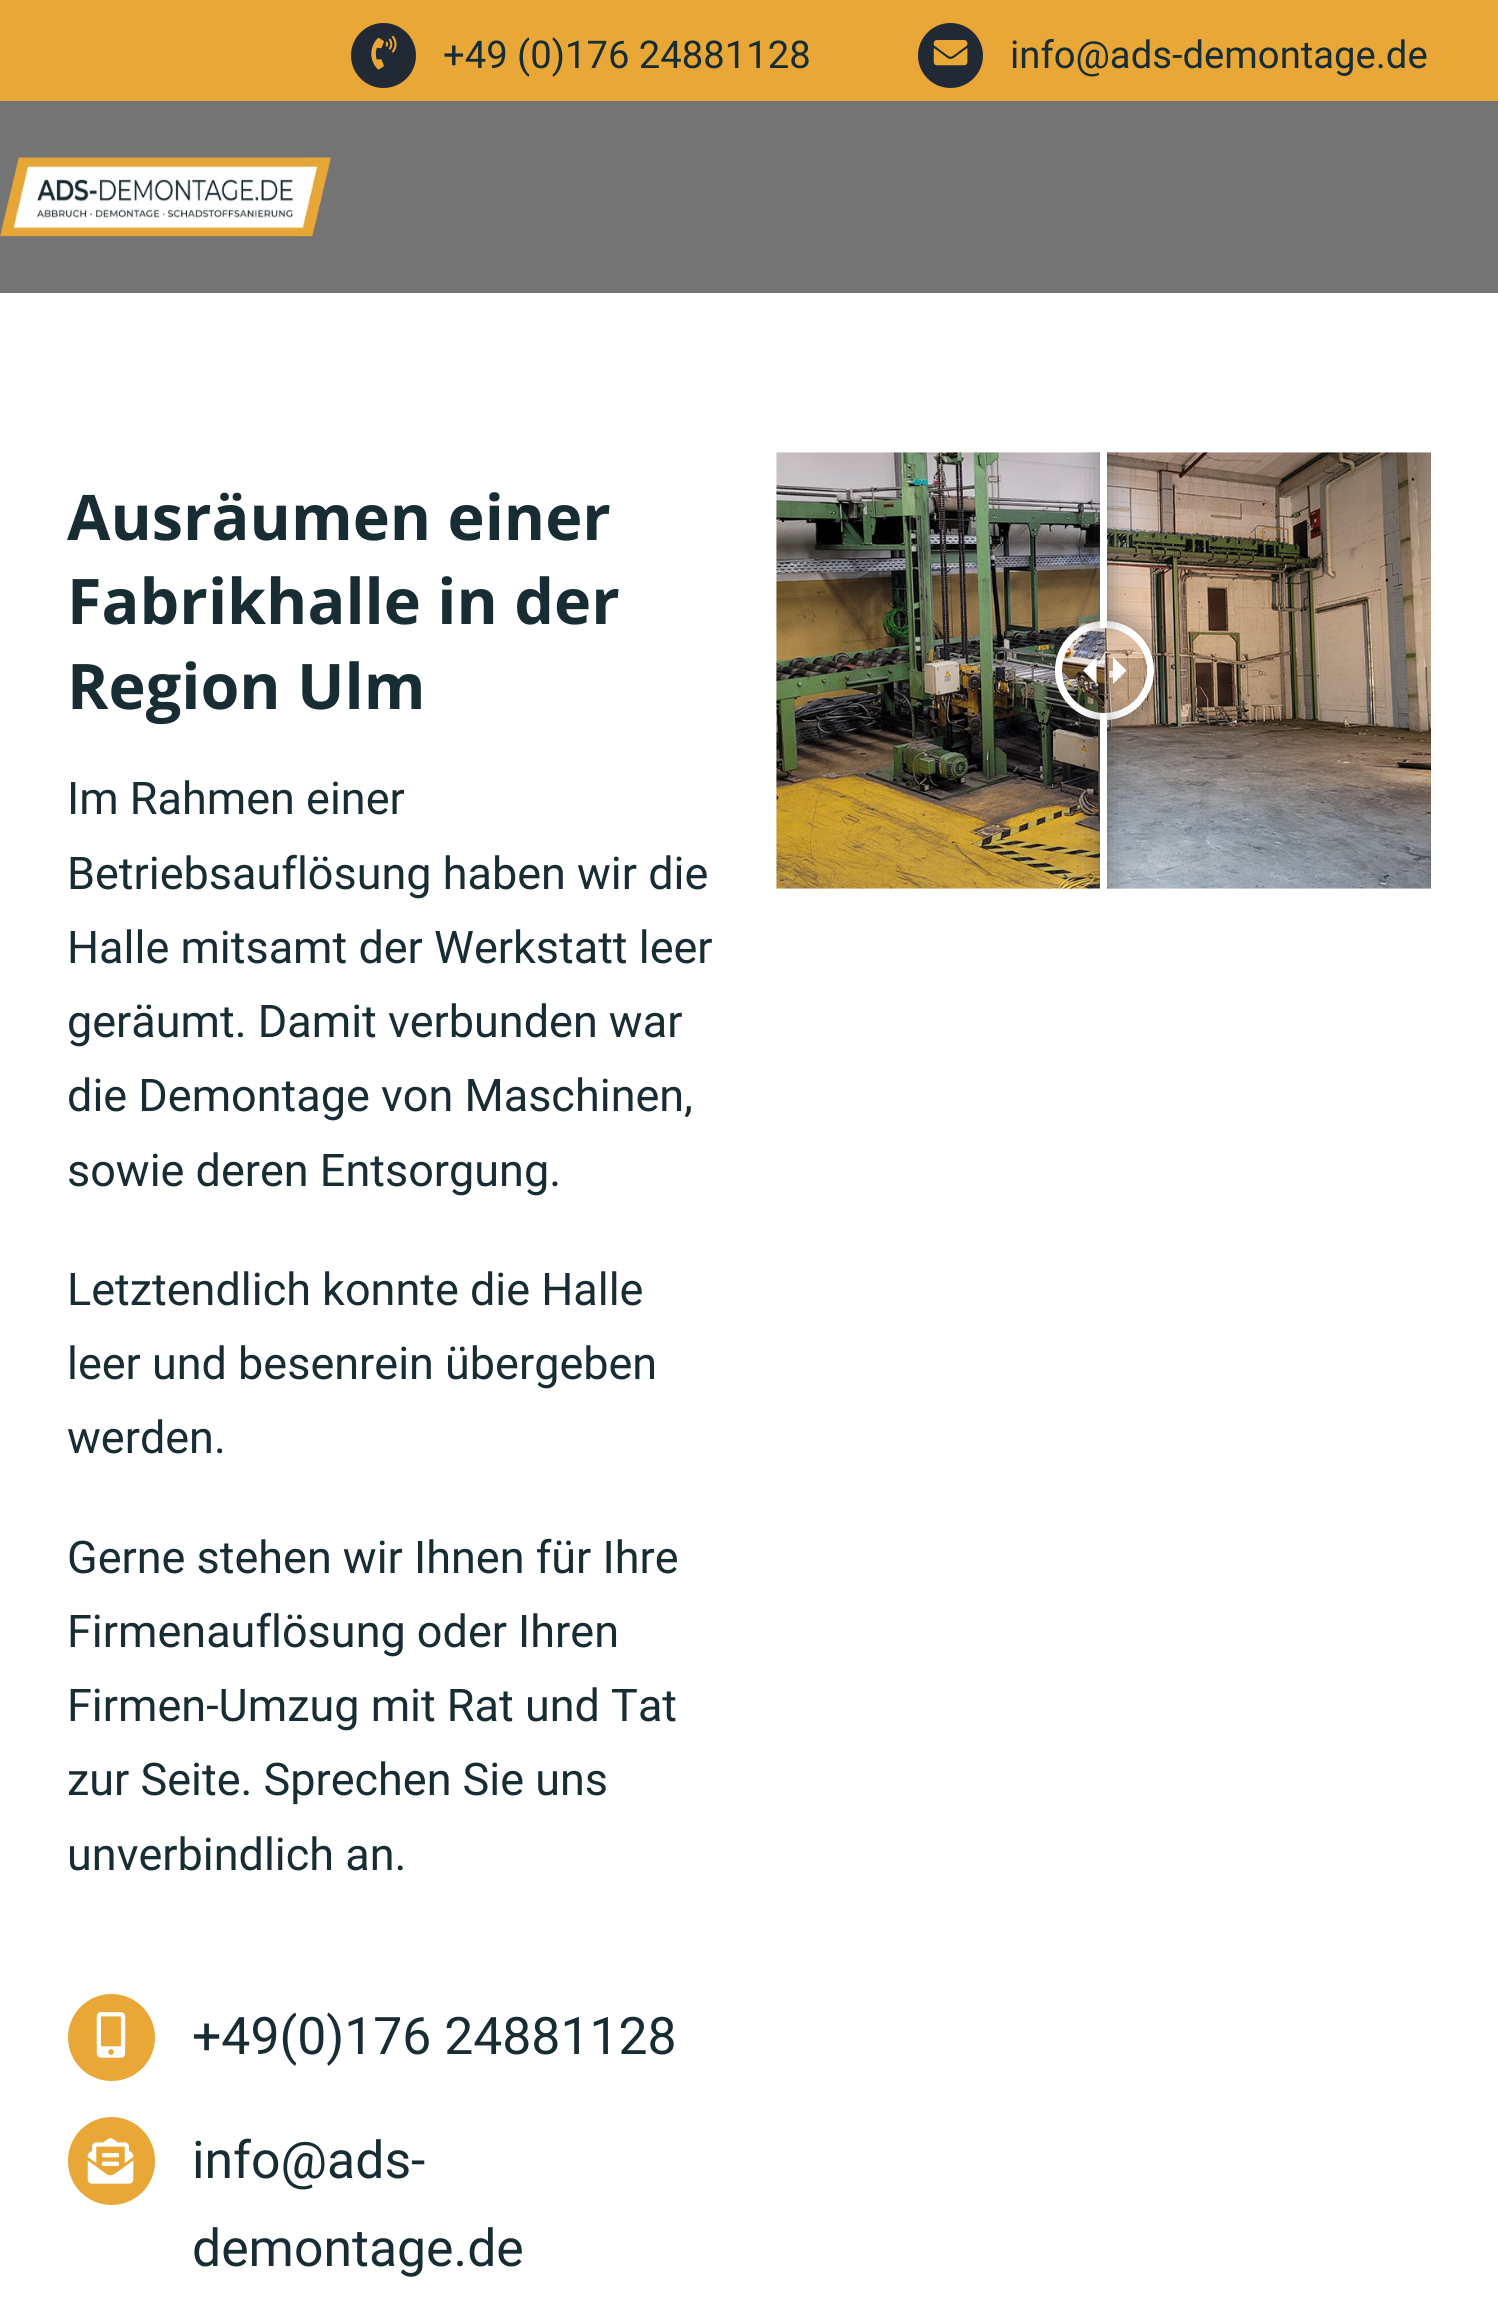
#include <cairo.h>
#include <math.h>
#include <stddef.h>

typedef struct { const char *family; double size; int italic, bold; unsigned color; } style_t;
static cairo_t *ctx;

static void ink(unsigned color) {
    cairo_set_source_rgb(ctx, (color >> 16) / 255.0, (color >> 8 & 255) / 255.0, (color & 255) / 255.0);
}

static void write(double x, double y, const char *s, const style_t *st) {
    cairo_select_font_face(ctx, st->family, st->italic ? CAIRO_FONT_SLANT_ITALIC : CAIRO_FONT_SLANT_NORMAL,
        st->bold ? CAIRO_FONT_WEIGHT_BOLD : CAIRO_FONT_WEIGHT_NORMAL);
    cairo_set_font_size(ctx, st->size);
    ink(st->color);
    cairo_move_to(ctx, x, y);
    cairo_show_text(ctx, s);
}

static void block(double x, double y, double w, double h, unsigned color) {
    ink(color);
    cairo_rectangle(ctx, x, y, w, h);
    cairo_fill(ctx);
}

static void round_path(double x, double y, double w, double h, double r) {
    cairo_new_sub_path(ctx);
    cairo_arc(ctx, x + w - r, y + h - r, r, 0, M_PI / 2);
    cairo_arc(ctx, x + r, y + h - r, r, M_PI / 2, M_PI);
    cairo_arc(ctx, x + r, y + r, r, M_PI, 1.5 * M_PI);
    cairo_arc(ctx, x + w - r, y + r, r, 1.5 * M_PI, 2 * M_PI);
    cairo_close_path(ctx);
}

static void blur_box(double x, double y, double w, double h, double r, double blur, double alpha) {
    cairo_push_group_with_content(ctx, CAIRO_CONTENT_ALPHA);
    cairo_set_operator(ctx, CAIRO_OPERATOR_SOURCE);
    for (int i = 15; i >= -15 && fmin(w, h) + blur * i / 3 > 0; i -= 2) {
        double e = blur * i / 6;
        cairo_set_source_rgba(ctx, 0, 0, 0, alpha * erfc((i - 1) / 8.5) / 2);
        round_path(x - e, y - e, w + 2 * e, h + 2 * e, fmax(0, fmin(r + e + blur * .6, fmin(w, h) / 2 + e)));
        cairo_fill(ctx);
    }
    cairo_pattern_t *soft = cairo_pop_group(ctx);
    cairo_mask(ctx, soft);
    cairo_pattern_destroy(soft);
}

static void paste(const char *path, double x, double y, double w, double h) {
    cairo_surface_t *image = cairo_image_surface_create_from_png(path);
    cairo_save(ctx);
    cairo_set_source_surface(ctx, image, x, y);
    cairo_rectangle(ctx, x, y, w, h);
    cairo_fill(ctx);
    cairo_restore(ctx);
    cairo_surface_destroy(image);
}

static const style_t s1 = {"Roboto", 38.25, 0, 0, 0x182d33};
static const style_t s2 = {"Open Sans", 62.9, 0, 1, 0x182d33};
static const style_t s3 = {"Roboto", 45, 0, 0, 0x182d33};
static const style_t s4 = {"Roboto", 51.75, 0, 0, 0x182d33};

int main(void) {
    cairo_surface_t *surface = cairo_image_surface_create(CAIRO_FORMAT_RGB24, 1498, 2305);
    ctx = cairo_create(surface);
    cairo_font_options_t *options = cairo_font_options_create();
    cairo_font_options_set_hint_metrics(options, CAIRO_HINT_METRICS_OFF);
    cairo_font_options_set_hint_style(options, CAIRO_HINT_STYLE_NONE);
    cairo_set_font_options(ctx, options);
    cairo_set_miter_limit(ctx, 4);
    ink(0xffffff);
    cairo_paint(ctx);
    block(0, 0, 1498, 101, 0xe8a737);
    ink(0x212934);
    cairo_arc(ctx, 383.5, 55.5, 32.5, 0, 2 * M_PI);
    cairo_fill(ctx);
    paste("pic1.png", 371, 35, 26, 35);
    write(443, 68, "+49 (0)176 24881128", &s1);
    ink(0x212934);
    cairo_new_path(ctx);
    cairo_arc(ctx, 950.5, 55.5, 32.5, 0, 2 * M_PI);
    cairo_fill(ctx);
    paste("pic2.png", 933, 40, 35, 26);
    write(1010, 68, "info@ads-demontage.de", &s1);
    paste("pic7.png", 1104, 452, 327, 437);
    paste("pic6.png", 776, 452, 329, 437);
    cairo_save(ctx);
    cairo_set_fill_rule(ctx, CAIRO_FILL_RULE_EVEN_ODD);
    cairo_new_path(ctx);
    cairo_move_to(ctx, 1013, 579);
    cairo_line_to(ctx, 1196, 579);
    cairo_line_to(ctx, 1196, 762);
    cairo_line_to(ctx, 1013, 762);
    cairo_close_path(ctx);
    cairo_move_to(ctx, 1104.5, 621);
    cairo_curve_to(ctx, 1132, 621, 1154, 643, 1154, 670.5);
    cairo_curve_to(ctx, 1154, 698, 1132, 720, 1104.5, 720);
    cairo_curve_to(ctx, 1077, 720, 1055, 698, 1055, 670.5);
    cairo_curve_to(ctx, 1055, 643, 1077, 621, 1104.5, 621);
    cairo_close_path(ctx);
    cairo_clip(ctx);
    ink(0x333333);
    blur_box(1055, 621, 99, 99, 49.5, 13.5, 0.5);
    cairo_restore(ctx);
    cairo_arc(ctx, 1104.5, 670.5, 46, 0, 2 * M_PI);
    ink(0xffffff);
    cairo_set_line_width(ctx, 7);
    cairo_stroke(ctx);
    cairo_new_path(ctx);
    cairo_move_to(ctx, 1096.5, 657);
    cairo_line_to(ctx, 1096.5, 684);
    cairo_line_to(ctx, 1083, 670.5);
    cairo_close_path(ctx);
    cairo_move_to(ctx, 1113, 684);
    cairo_line_to(ctx, 1113, 657);
    cairo_line_to(ctx, 1126.5, 670.5);
    cairo_close_path(ctx);
    cairo_fill(ctx);
    cairo_save(ctx);
    cairo_rectangle(ctx, 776, 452, 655, 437);
    cairo_clip(ctx);
    ink(0x333333);
    blur_box(1100, -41, 7, 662, 0, 13.5, 0.5);
    cairo_restore(ctx);
    block(0, 101, 1498, 192, 0x747474);
    paste("pic3.png", 0, 157, 331, 80);
    write(67, 540, "Ausräumen einer", &s2);
    write(67, 624, "Fabrikhalle in der", &s2);
    write(67, 709, "Region Ulm", &s2);
    write(67, 814, "Im Rahmen einer", &s3);
    write(67, 889, "Betriebsauflösung haben wir die", &s3);
    write(67, 963, "Halle mitsamt der Werkstatt leer", &s3);
    write(67, 1037, "geräumt. Damit verbunden war", &s3);
    write(67, 1111, "die Demontage von Maschinen,", &s3);
    write(67, 1186, "sowie deren Entsorgung.", &s3);
    write(67, 1305, "Letztendlich konnte die Halle", &s3);
    write(67, 1379, "leer und besenrein übergeben", &s3);
    write(67, 1453, "werden.", &s3);
    write(67, 1573, "Gerne stehen wir Ihnen für Ihre", &s3);
    write(67, 1647, "Firmenauflösung oder Ihren", &s3);
    write(67, 1721, "Firmen-Umzug mit Rat und Tat", &s3);
    write(67, 1795, "zur Seite. Sprechen Sie uns", &s3);
    write(67, 1870, "unverbindlich an.", &s3);
    ink(0xe8a737);
    cairo_new_path(ctx);
    cairo_arc(ctx, 111.5, 2037.5, 43.5, 0, 2 * M_PI);
    cairo_fill(ctx);
    paste("pic4.png", 96, 2012, 30, 46);
    write(192, 2054, "+49(0)176 24881128", &s4);
    ink(0xe8a737);
    round_path(68, 2117, 87, 88, 43.5);
    cairo_fill(ctx);
    paste("pic5.png", 87, 2138, 47, 46);
    write(192, 2178, "info@ads-", &s4);
    write(192, 2266, "demontage.de", &s4);
    ink(0xffffff);
    cairo_new_path(ctx);
    cairo_move_to(ctx, 1100, -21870);
    cairo_line_to(ctx, 1100, 628);
    cairo_line_to(ctx, 1107, 628);
    cairo_line_to(ctx, 1107, 621);
    cairo_line_to(ctx, 1100, 621);
    cairo_close_path(ctx);
    cairo_fill(ctx);
    block(1100, 452, 7, 169, 0xffffff);
    cairo_save(ctx);
    cairo_rectangle(ctx, 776, 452, 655, 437);
    cairo_clip(ctx);
    ink(0x333333);
    blur_box(1100, 720, 7, 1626, 0, 13.5, 0.5);
    cairo_restore(ctx);
    cairo_new_path(ctx);
    cairo_move_to(ctx, 1100, 713);
    cairo_line_to(ctx, 1100, 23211);
    cairo_line_to(ctx, 1100, 720);
    cairo_line_to(ctx, 1107, 720);
    cairo_line_to(ctx, 1107, 713);
    cairo_close_path(ctx);
    cairo_fill(ctx);
    block(1100, 720, 7, 169, 0xffffff);
    cairo_surface_write_to_png(surface, "screenshot.png");
    cairo_font_options_destroy(options);
    cairo_destroy(ctx);
    cairo_surface_destroy(surface);
    return 0;
}
